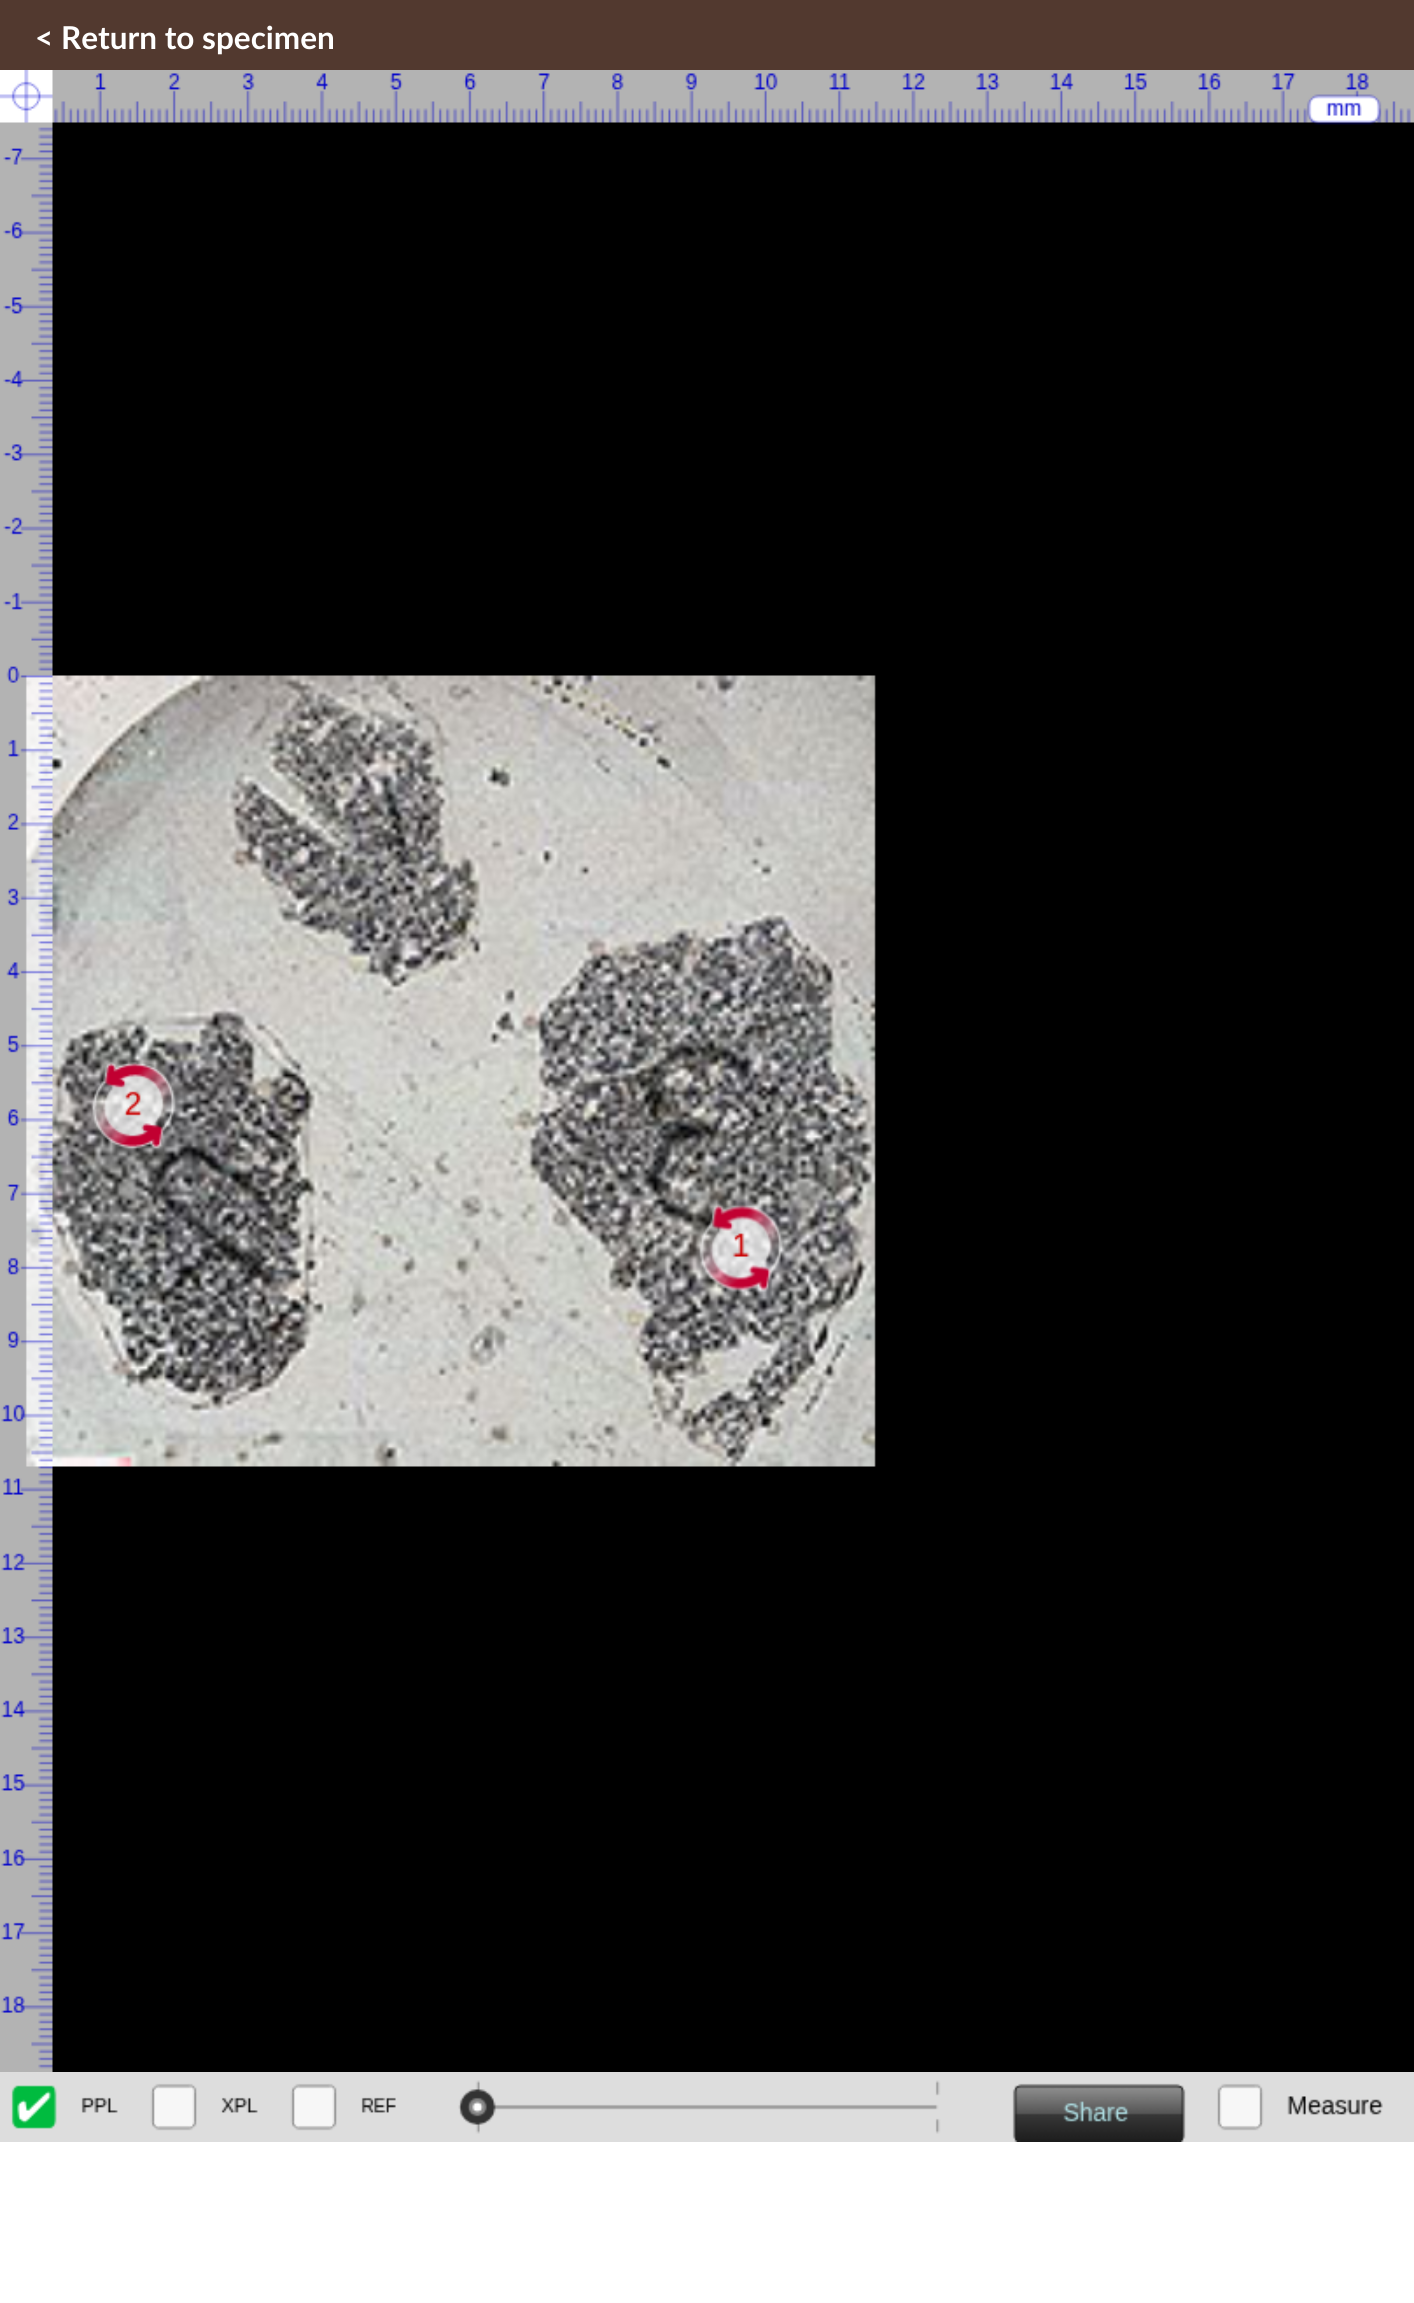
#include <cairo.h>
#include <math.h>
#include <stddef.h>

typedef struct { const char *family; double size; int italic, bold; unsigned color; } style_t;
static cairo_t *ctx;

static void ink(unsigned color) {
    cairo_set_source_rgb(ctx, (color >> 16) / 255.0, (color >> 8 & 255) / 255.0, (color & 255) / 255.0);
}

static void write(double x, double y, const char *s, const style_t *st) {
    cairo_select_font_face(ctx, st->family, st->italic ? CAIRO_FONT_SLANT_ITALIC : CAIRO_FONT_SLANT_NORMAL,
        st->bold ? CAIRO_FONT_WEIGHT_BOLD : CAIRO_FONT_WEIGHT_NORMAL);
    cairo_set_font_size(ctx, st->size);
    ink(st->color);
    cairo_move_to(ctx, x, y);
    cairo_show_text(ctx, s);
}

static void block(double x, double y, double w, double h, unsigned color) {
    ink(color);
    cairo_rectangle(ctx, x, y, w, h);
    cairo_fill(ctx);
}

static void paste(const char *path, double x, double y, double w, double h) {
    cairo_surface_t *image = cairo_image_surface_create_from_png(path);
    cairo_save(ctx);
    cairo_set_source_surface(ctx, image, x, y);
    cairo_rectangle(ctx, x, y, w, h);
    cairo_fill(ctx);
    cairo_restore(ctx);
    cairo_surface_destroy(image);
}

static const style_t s1 = {"Lato", 31.5, 0, 1, 0xffffff};

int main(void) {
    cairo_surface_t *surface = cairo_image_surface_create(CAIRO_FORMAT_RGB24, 1414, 2303);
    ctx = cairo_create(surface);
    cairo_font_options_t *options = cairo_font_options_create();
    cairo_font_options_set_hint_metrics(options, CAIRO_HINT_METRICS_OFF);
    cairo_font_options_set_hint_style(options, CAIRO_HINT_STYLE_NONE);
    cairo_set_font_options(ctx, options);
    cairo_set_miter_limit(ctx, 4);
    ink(0xffffff);
    cairo_paint(ctx);
    block(0, 0, 1414, 70, 0x52392f);
    write(35, 49, "< Return to specimen", &s1);
    paste("pic1.png", 0, 70, 1414, 2072);
    cairo_surface_write_to_png(surface, "screenshot.png");
    cairo_font_options_destroy(options);
    cairo_destroy(ctx);
    cairo_surface_destroy(surface);
    return 0;
}
